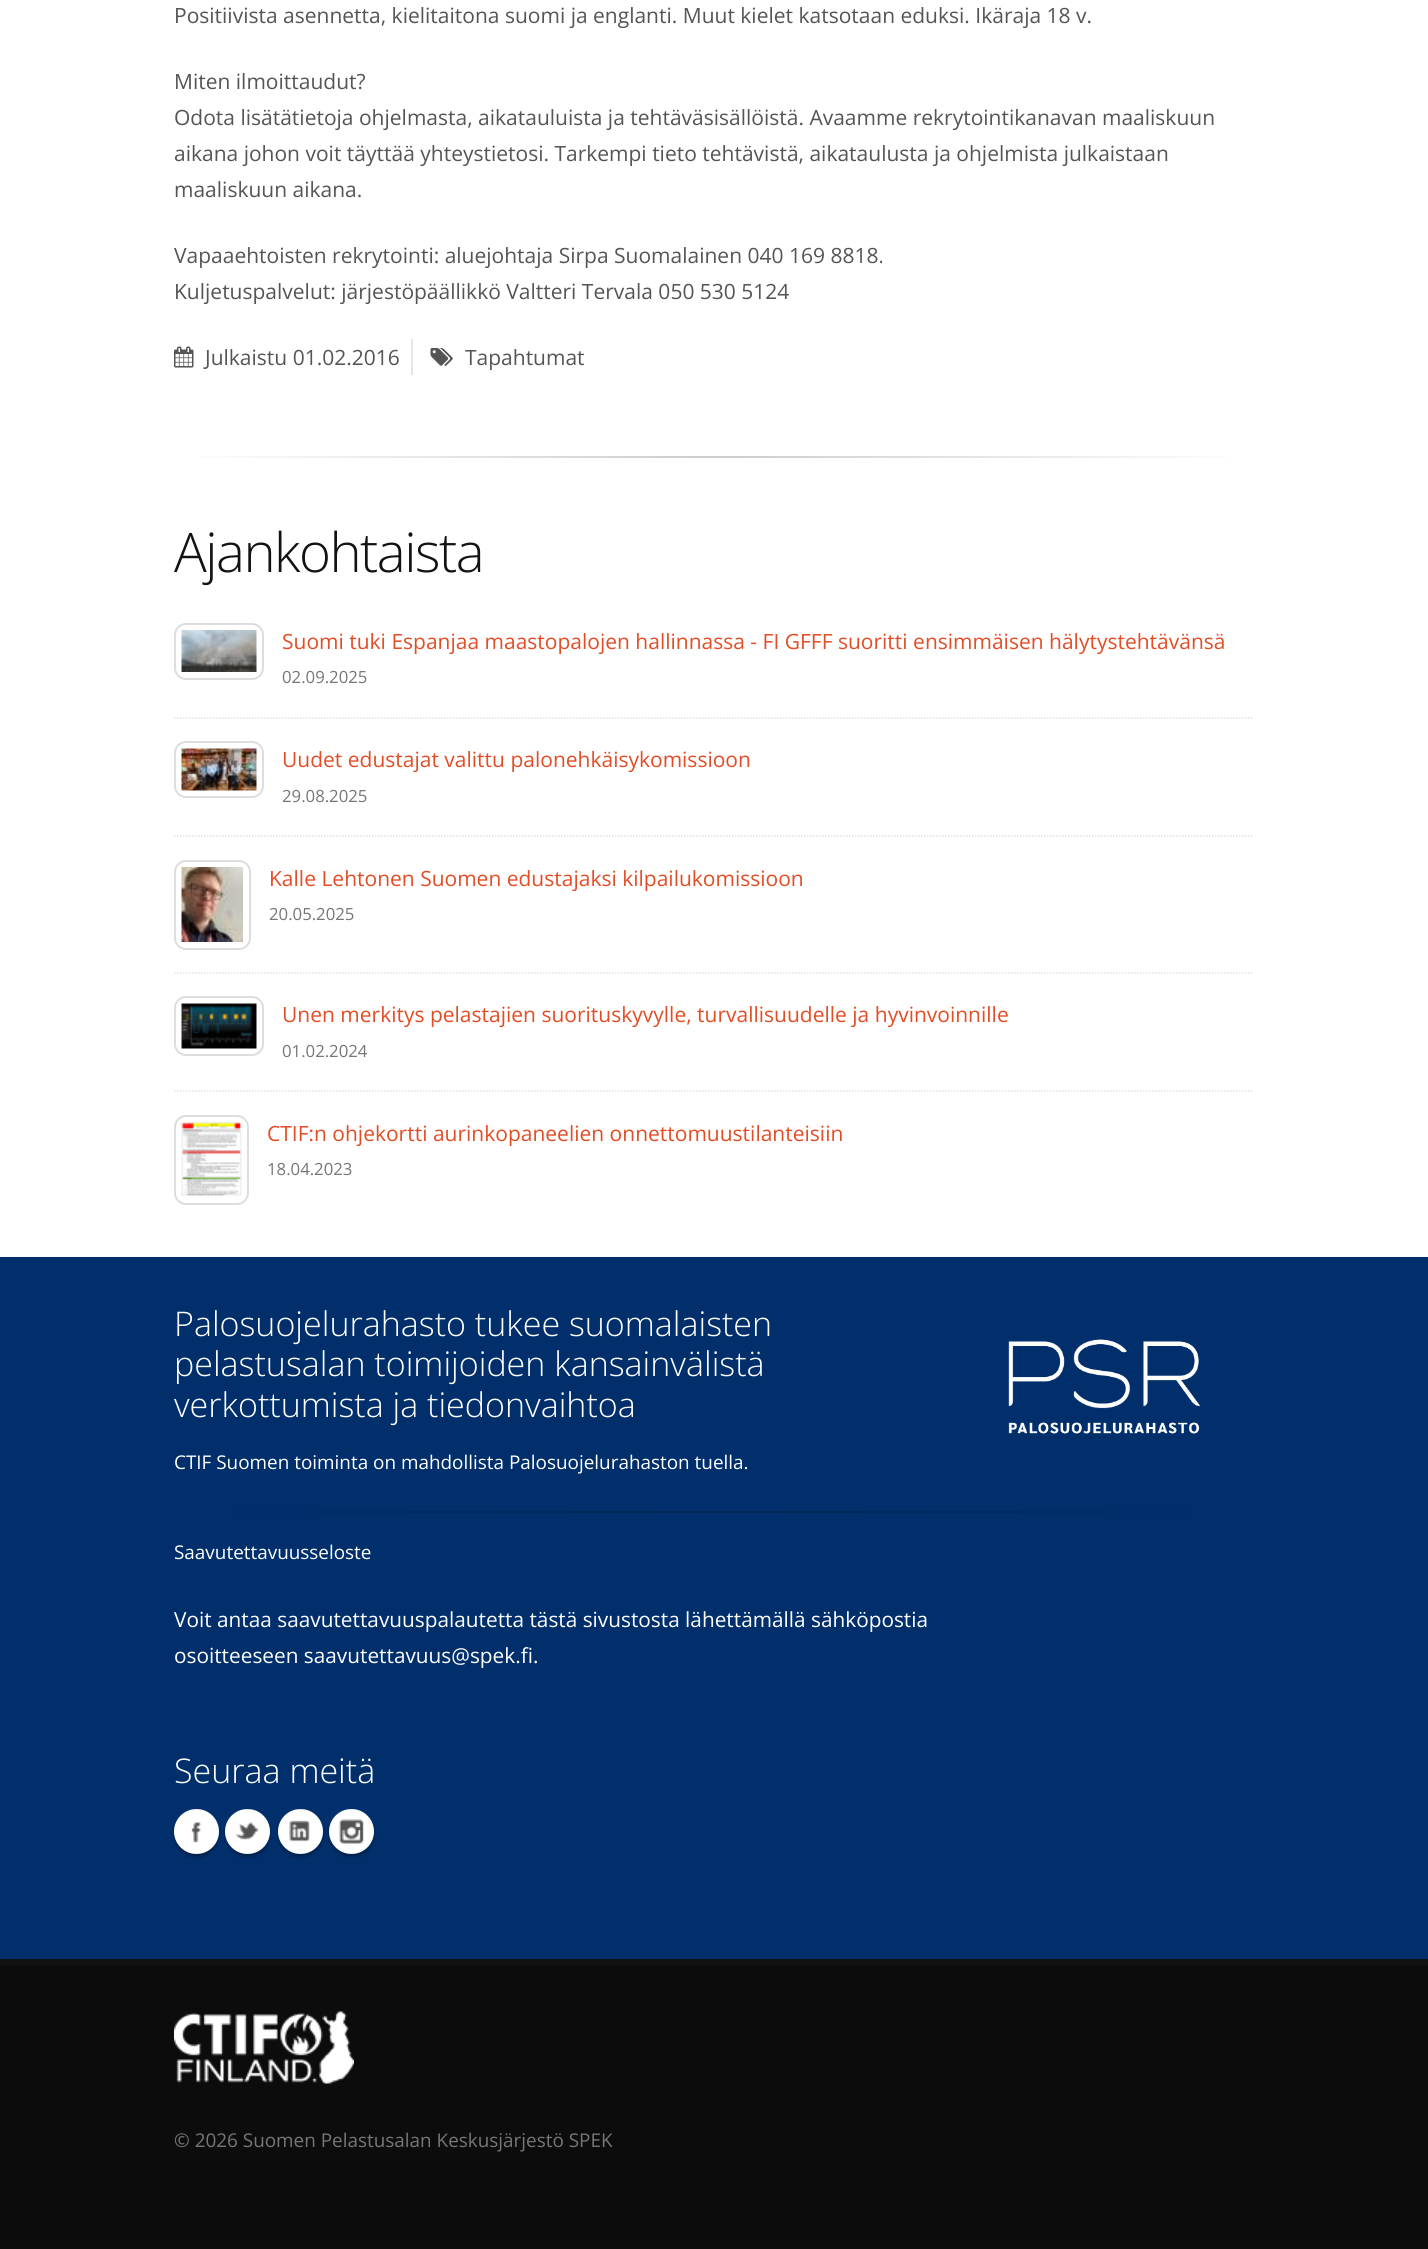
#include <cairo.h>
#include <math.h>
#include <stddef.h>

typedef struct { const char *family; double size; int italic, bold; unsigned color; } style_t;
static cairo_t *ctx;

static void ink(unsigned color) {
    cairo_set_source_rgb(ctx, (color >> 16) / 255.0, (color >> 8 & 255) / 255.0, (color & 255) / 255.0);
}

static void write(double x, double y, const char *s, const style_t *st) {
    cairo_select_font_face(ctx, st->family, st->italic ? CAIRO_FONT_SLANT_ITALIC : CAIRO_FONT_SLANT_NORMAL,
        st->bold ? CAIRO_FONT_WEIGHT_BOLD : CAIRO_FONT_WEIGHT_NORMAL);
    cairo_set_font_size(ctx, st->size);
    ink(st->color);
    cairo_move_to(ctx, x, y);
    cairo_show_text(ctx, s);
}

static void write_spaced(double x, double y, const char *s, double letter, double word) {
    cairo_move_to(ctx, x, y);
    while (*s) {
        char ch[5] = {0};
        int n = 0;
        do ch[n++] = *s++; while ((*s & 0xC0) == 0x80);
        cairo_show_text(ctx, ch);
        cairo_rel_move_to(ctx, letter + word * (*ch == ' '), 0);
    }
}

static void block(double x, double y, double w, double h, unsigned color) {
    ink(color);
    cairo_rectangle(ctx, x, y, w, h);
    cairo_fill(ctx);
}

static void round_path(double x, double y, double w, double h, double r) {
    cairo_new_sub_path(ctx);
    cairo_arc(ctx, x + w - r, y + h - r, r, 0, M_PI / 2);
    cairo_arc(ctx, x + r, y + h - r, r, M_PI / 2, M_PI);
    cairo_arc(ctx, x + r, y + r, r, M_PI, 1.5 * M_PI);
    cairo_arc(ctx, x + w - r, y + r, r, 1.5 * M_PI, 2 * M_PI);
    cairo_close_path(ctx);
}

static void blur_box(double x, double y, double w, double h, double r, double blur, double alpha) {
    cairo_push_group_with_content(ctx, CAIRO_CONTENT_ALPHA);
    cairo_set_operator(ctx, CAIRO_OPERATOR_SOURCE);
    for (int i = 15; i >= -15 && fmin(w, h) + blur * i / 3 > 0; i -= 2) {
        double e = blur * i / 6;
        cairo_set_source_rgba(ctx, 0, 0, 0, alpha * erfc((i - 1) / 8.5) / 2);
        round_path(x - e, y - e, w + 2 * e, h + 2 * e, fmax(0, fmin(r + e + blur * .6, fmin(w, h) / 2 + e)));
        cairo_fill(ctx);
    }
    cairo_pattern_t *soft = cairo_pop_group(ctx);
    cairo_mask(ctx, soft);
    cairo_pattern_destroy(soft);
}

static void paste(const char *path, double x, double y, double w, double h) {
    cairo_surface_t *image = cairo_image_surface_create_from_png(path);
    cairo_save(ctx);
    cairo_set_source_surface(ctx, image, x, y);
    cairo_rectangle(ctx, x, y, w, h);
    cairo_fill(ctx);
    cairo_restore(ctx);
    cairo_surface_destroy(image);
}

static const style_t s1 = {"Open Sans", 21, 0, 0, 0x555555};
static const style_t s2 = {"Open Sans", 21, 0, 0, 0xe34d25};
static const style_t s3 = {"Open Sans", 16.75, 0, 0, 0x767676};
static const style_t s4 = {"Open Sans Light", 34, 0, 0, 0xffffff};
static const style_t s5 = {"Open Sans", 18.9, 0, 0, 0xffffff};
static const style_t s6 = {"Open Sans", 20.8, 0, 0, 0xffffff};
static const style_t s7 = {"Open Sans", 18.9, 0, 0, 0x767676};

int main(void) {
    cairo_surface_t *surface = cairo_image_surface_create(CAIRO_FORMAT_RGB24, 1428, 2249);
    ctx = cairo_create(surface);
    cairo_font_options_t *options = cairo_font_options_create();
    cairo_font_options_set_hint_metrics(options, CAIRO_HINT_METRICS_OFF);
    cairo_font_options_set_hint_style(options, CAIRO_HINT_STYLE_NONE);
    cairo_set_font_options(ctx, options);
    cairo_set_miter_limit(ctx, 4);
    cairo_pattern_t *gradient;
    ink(0xffffff);
    cairo_paint(ctx);
    write(174, 23, "Positiivista asennetta, kielitaitona suomi ja englanti. Muut kielet katsotaan eduksi. Ikäraja 18 v.", &s1);
    write(174, 89, "Miten ilmoittaudut?", &s1);
    write(174, 125, "Odota lisätätietoja ohjelmasta, aikatauluista ja tehtäväsisällöistä. Avaamme rekrytointikanavan maaliskuun", &s1);
    write(174, 161, "aikana johon voit täyttää yhteystietosi. Tarkempi tieto tehtävistä, aikataulusta ja ohjelmista julkaistaan", &s1);
    write(174, 197, "maaliskuun aikana.", &s1);
    write(174, 263, "Vapaaehtoisten rekrytointi: aluejohtaja Sirpa Suomalainen 040 169 8818.", &s1);
    write(174, 299, "Kuljetuspalvelut: järjestöpäällikkö Valtteri Tervala 050 530 5124", &s1);
    block(411, 339, 2, 36, 0xe6e6e6);
    paste("pic1.png", 174, 346, 20, 22);
    write(205, 365, "Julkaistu 01.02.2016", &s1);
    paste("pic2.png", 430, 348, 23, 18);
    write(465, 365, "Tapahtumat", &s1);
    gradient = cairo_pattern_create_linear(174, 457, 1254, 457);
    cairo_pattern_add_color_stop_rgba(gradient, 0, 1, 1, 1, 1);
    cairo_pattern_add_color_stop_rgba(gradient, 0.5, 0.8, 0.8, 0.8, 1);
    cairo_pattern_add_color_stop_rgba(gradient, 1, 1, 1, 1, 1);
    cairo_set_source(ctx, gradient);
    cairo_pattern_destroy(gradient);
    cairo_rectangle(ctx, 200, 456, 1028, 2);
    cairo_fill(ctx);
    cairo_select_font_face(ctx, "Open Sans Light", CAIRO_FONT_SLANT_NORMAL, CAIRO_FONT_WEIGHT_NORMAL);
    cairo_set_font_size(ctx, 54.5);
    ink(0x121214);
    write_spaced(174, 572, "Ajankohtaista", -1.5, 0);
    cairo_new_path(ctx);
    cairo_move_to(ctx, 174, 718);
    cairo_line_to(ctx, 1254, 718);
    ink(0xe2e2e2);
    cairo_set_line_width(ctx, 1.5);
    cairo_set_dash(ctx, (double[]){1.5, 1.5}, 2, 0);
    cairo_stroke(ctx);
    round_path(175, 624, 88, 55, 11);
    ink(0xdddddd);
    cairo_set_line_width(ctx, 2);
    cairo_set_dash(ctx, NULL, 0, 0);
    cairo_stroke(ctx);
    paste("pic3.png", 181, 630, 76, 42);
    write(282, 649, "Suomi tuki Espanjaa maastopalojen hallinnassa - FI GFFF suoritti ensimmäisen hälytystehtävänsä", &s2);
    write(282, 683, "02.09.2025", &s3);
    cairo_new_path(ctx);
    cairo_move_to(ctx, 174, 836);
    cairo_line_to(ctx, 1254, 836);
    ink(0xe2e2e2);
    cairo_set_line_width(ctx, 1.5);
    cairo_set_dash(ctx, (double[]){1.5, 1.5}, 2, 0);
    cairo_stroke(ctx);
    round_path(175, 742, 88, 55, 11);
    ink(0xdddddd);
    cairo_set_line_width(ctx, 2);
    cairo_set_dash(ctx, NULL, 0, 0);
    cairo_stroke(ctx);
    paste("pic4.png", 181, 748, 76, 43);
    write(282, 767, "Uudet edustajat valittu palonehkäisykomissioon", &s2);
    write(282, 802, "29.08.2025", &s3);
    cairo_new_path(ctx);
    cairo_move_to(ctx, 174, 973);
    cairo_line_to(ctx, 1254, 973);
    ink(0xe2e2e2);
    cairo_set_line_width(ctx, 1.5);
    cairo_set_dash(ctx, (double[]){1.5, 1.5}, 2, 0);
    cairo_stroke(ctx);
    round_path(175, 861, 75, 88, 11);
    ink(0xdddddd);
    cairo_set_line_width(ctx, 2);
    cairo_set_dash(ctx, NULL, 0, 0);
    cairo_stroke(ctx);
    paste("pic5.png", 181, 867, 62, 75);
    write(269, 886, "Kalle Lehtonen Suomen edustajaksi kilpailukomissioon", &s2);
    write(269, 920, "20.05.2025", &s3);
    cairo_new_path(ctx);
    cairo_move_to(ctx, 174, 1091);
    cairo_line_to(ctx, 1254, 1091);
    ink(0xe2e2e2);
    cairo_set_line_width(ctx, 1.5);
    cairo_set_dash(ctx, (double[]){1.5, 1.5}, 2, 0);
    cairo_stroke(ctx);
    round_path(175, 997, 88, 58, 11);
    ink(0xdddddd);
    cairo_set_line_width(ctx, 2);
    cairo_set_dash(ctx, NULL, 0, 0);
    cairo_stroke(ctx);
    paste("pic6.png", 181, 1003, 76, 46);
    write(282, 1022, "Unen merkitys pelastajien suorituskyvylle, turvallisuudelle ja hyvinvoinnille", &s2);
    write(282, 1057, "01.02.2024", &s3);
    round_path(175, 1116, 73, 88, 11);
    ink(0xdddddd);
    cairo_stroke(ctx);
    paste("pic7.png", 181, 1122, 61, 74);
    write(267, 1141, "CTIF:n ohjekortti aurinkopaneelien onnettomuustilanteisiin", &s2);
    write(267, 1175, "18.04.2023", &s3);
    block(0, 1257, 1428, 702, 0x002f6c);
    write(174, 1336, "Palosuojelurahasto tukee suomalaisten", &s4);
    write(174, 1376, "pelastusalan toimijoiden kansainvälistä", &s4);
    paste("pic8.png", 1008, 1339, 192, 95);
    write(174, 1417, "verkottumista ja tiedonvaihtoa", &s4);
    write(174, 1469, "CTIF Suomen toiminta on mahdollista Palosuojelurahaston tuella.", &s5);
    gradient = cairo_pattern_create_linear(174, 1511, 1254, 1511);
    cairo_pattern_add_color_stop_rgba(gradient, 0, 0, 0.184, 0.424, 1);
    cairo_pattern_add_color_stop_rgba(gradient, 0.5, 0, 0.149, 0.337, 1);
    cairo_pattern_add_color_stop_rgba(gradient, 1, 0, 0.184, 0.424, 1);
    cairo_set_source(ctx, gradient);
    cairo_pattern_destroy(gradient);
    cairo_rectangle(ctx, 235, 1511, 958, 2);
    cairo_fill(ctx);
    write(174, 1559, "Saavutettavuusseloste", &s5);
    write(174, 1627, "Voit antaa saavutettavuuspalautetta tästä sivustosta lähettämällä sähköpostia", &s6);
    write(174, 1663, "osoitteeseen saavutettavuus@spek.fi.", &s6);
    write(174, 1783, "Seuraa meitä", &s4);
    ink(0x000000);
    blur_box(174, 1812, 45, 45, 22.5, 1.5, 0.3);
    ink(0xffffff);
    cairo_arc(ctx, 196.5, 1831.5, 22.5, 0, 2 * M_PI);
    cairo_fill(ctx);
    paste("pic9.png", 191, 1809, 11, 45);
    ink(0x000000);
    blur_box(225, 1812, 45, 45, 22.5, 1.5, 0.3);
    ink(0xffffff);
    cairo_arc(ctx, 247.5, 1831.5, 22.5, 0, 2 * M_PI);
    cairo_fill(ctx);
    paste("pic10.png", 235, 1809, 24, 45);
    ink(0x000000);
    blur_box(278, 1812, 45, 45, 22.5, 1.5, 0.3);
    ink(0xffffff);
    cairo_arc(ctx, 300.5, 1831.5, 22.5, 0, 2 * M_PI);
    cairo_fill(ctx);
    paste("pic11.png", 289, 1809, 21, 45);
    ink(0x000000);
    blur_box(329, 1812, 45, 45, 22.5, 1.5, 0.3);
    ink(0xffffff);
    cairo_arc(ctx, 351.5, 1831.5, 22.5, 0, 2 * M_PI);
    cairo_fill(ctx);
    paste("pic12.png", 338, 1809, 26, 45);
    block(0, 1965, 1428, 284, 0x0c0c0c);
    block(0, 1959, 1428, 6, 0x111111);
    paste("pic13.png", 174, 2011, 180, 73);
    write(174, 2147, "© 2026 Suomen Pelastusalan Keskusjärjestö SPEK", &s7);
    cairo_surface_write_to_png(surface, "screenshot.png");
    cairo_font_options_destroy(options);
    cairo_destroy(ctx);
    cairo_surface_destroy(surface);
    return 0;
}
